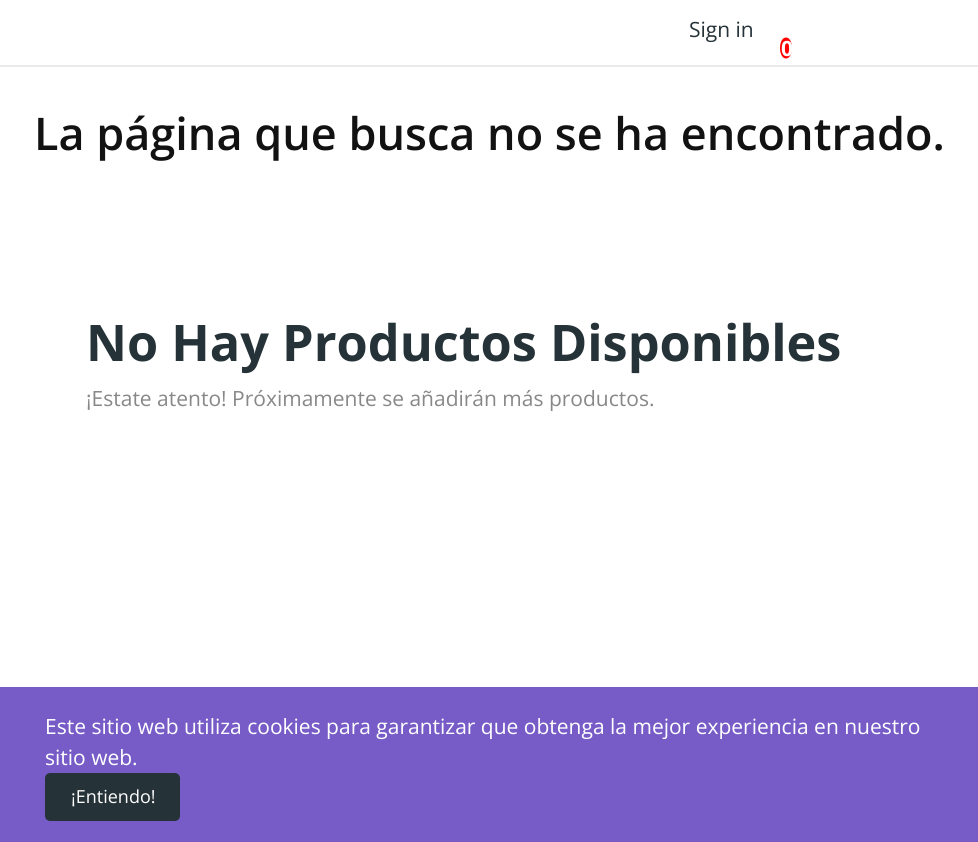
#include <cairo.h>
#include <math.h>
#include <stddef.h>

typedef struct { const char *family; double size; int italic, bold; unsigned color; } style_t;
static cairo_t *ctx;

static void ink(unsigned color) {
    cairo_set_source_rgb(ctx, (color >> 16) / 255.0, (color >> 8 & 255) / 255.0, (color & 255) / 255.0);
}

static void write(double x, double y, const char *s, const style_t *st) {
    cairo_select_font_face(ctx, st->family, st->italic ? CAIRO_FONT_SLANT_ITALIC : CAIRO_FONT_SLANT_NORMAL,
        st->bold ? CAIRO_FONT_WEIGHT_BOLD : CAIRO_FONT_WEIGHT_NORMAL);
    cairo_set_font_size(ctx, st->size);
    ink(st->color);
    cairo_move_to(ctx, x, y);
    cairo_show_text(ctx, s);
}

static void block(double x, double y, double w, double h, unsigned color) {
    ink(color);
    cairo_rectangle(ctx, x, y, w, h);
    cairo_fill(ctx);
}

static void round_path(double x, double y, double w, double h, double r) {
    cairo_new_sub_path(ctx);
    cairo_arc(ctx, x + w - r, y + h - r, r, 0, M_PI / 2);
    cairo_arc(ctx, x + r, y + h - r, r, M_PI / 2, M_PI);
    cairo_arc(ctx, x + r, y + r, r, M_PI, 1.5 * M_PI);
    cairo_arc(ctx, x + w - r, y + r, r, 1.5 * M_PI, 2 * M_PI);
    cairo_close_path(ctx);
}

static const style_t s1 = {"Open Sans", 21, 0, 0, 0x253237};
static const style_t s2 = {"Open Sans", 21, 0, 1, 0xffffff};
static const style_t s3 = {"Open Sans SemiBold", 45, 0, 0, 0x121213};
static const style_t s4 = {"Open Sans", 50.4, 0, 1, 0x253237};
static const style_t s5 = {"Open Sans", 21, 0, 0, 0x888888};
static const style_t s6 = {"Open Sans", 21, 0, 0, 0xffffff};
static const style_t s7 = {"Open Sans", 18, 0, 0, 0xffffff};

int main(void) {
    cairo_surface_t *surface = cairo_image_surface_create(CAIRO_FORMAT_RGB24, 978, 842);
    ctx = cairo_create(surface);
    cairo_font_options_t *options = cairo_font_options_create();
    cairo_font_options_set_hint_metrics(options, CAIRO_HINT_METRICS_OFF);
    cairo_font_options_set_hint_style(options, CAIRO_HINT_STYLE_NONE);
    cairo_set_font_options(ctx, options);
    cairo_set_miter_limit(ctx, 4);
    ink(0xffffff);
    cairo_paint(ctx);
    block(0, 65, 978, 2, 0xebebeb);
    write(689, 37, "Sign in", &s1);
    ink(0xff0000);
    cairo_new_path(ctx);
    cairo_move_to(ctx, 786, 37.5);
    cairo_curve_to(ctx, 789.5, 37.5, 792, 42, 792, 48);
    cairo_curve_to(ctx, 792, 54, 789.5, 58.5, 786, 58.5);
    cairo_curve_to(ctx, 782.5, 58.5, 780, 54, 780, 48);
    cairo_curve_to(ctx, 780, 42, 782.5, 37.5, 786, 37.5);
    cairo_close_path(ctx);
    cairo_fill(ctx);
    write(781, 56, "0", &s2);
    write(34, 150, "La página que busca no se ha encontrado.", &s3);
    write(86, 361, "No Hay Productos Disponibles", &s4);
    write(86, 406, "¡Estate atento! Próximamente se añadirán más productos.", &s5);
    block(0, 687, 978, 155, 0x775cc7);
    write(45, 734, "Este sitio web utiliza cookies para garantizar que obtenga la mejor experiencia en nuestro", &s6);
    write(45, 765, "sitio web.", &s6);
    ink(0x253237);
    round_path(46.5, 774.5, 132, 45, 3.5);
    cairo_fill_preserve(ctx);
    cairo_set_line_width(ctx, 3);
    cairo_stroke(ctx);
    write(71, 803, "¡Entiendo!", &s7);
    cairo_surface_write_to_png(surface, "screenshot.png");
    cairo_font_options_destroy(options);
    cairo_destroy(ctx);
    cairo_surface_destroy(surface);
    return 0;
}
